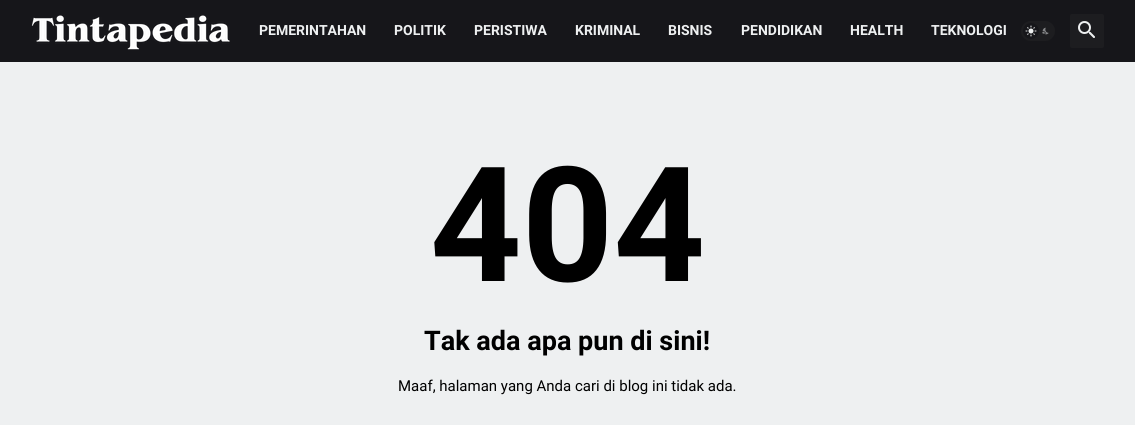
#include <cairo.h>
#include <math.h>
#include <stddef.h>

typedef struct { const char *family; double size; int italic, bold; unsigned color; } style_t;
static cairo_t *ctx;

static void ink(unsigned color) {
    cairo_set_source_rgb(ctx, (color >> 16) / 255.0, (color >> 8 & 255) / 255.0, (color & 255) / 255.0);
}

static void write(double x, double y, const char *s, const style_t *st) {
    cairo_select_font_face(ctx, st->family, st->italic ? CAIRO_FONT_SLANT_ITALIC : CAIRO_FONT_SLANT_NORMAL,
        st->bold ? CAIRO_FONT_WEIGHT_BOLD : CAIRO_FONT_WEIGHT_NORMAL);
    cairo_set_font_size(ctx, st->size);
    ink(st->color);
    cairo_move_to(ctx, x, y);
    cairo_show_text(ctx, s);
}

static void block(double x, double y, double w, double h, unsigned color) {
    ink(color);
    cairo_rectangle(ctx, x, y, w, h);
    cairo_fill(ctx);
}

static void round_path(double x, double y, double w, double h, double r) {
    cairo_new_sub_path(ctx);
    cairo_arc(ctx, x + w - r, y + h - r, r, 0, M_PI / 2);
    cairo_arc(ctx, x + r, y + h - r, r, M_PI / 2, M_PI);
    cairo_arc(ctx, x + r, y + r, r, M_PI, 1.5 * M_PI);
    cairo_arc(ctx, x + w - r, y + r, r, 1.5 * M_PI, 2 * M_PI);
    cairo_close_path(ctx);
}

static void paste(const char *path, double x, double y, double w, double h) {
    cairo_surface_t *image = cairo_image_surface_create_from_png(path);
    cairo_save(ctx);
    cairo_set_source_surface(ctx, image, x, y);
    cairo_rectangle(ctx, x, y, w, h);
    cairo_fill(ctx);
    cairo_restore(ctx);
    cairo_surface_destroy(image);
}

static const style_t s1 = {"Roboto", 14, 0, 1, 0xeef0f1};
static const style_t s2 = {"Roboto", 160, 0, 1, 0x000000};
static const style_t s3 = {"Roboto", 27, 0, 1, 0x000000};
static const style_t s4 = {"Roboto", 15, 0, 0, 0x000000};

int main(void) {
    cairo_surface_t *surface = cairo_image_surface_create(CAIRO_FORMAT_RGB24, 1135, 425);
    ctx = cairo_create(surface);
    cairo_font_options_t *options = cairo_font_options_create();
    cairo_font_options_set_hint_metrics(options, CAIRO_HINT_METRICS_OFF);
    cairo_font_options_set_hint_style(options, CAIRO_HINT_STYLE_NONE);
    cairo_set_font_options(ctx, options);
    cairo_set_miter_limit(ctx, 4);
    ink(0xeef0f1);
    cairo_paint(ctx);
    block(0, 0, 1135, 62, 0x16161a);
    paste("pic1.png", 31, 15, 199, 35);
    write(259, 35, "PEMERINTAHAN", &s1);
    write(394, 35, "POLITIK", &s1);
    write(474, 35, "PERISTIWA", &s1);
    write(575, 35, "KRIMINAL", &s1);
    write(668, 35, "BISNIS", &s1);
    write(741, 35, "PENDIDIKAN", &s1);
    write(850, 35, "HEALTH", &s1);
    write(931, 35, "TEKNOLOGI", &s1);
    ink(0x1d1d20);
    round_path(1021, 21, 34, 20, 10);
    cairo_fill(ctx);
    ink(0x16161a);
    cairo_arc(ctx, 1031, 31, 8, 0, 2 * M_PI);
    cairo_fill(ctx);
    paste("pic2.png", 1025, 25, 12, 12);
    paste("pic3.png", 1042, 27, 7, 8);
    ink(0x1d1d20);
    round_path(1070, 14, 34, 34, 2);
    cairo_fill(ctx);
    paste("pic4.png", 1078, 21, 17, 17);
    write(430, 281, "404", &s2);
    write(424, 350, "Tak ada apa pun di sini!", &s3);
    write(398, 391, "Maaf, halaman yang Anda cari di blog ini tidak ada.", &s4);
    cairo_surface_write_to_png(surface, "screenshot.png");
    cairo_font_options_destroy(options);
    cairo_destroy(ctx);
    cairo_surface_destroy(surface);
    return 0;
}
